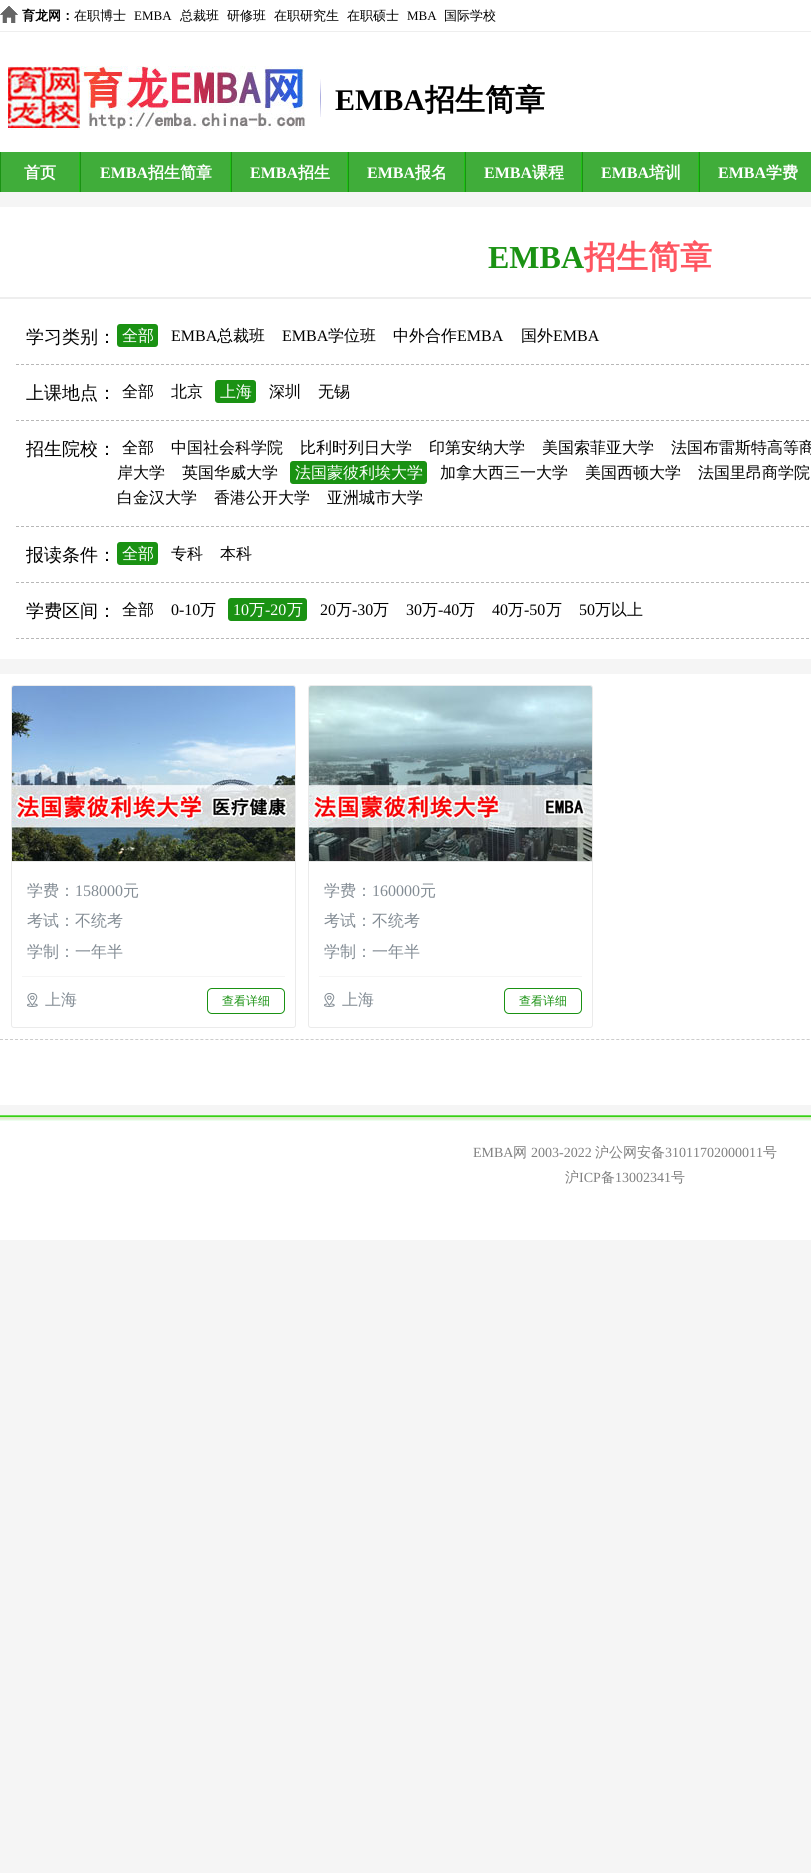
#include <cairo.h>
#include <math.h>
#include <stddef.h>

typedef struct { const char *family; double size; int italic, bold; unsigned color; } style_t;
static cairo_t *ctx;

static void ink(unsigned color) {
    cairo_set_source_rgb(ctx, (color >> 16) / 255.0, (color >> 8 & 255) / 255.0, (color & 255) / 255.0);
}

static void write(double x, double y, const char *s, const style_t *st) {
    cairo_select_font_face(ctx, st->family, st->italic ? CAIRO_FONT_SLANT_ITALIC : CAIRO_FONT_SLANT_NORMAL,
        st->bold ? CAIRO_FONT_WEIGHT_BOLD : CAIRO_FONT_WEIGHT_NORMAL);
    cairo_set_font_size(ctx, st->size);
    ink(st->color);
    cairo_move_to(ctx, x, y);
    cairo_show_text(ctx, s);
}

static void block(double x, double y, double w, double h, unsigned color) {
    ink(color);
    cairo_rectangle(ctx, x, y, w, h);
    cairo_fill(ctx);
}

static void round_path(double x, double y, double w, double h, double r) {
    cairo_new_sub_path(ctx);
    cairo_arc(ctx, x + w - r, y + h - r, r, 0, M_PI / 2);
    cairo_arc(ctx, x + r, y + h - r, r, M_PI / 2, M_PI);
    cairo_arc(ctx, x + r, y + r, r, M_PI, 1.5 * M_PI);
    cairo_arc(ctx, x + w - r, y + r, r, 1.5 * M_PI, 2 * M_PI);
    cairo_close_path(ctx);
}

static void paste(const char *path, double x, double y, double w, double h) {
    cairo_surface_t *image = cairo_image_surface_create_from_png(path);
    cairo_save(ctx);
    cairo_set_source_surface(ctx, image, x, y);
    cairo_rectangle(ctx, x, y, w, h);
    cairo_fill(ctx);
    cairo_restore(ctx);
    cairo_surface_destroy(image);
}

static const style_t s1 = {"WenQuanYi Zen Hei", 13, 0, 1, 0x000000};
static const style_t s2 = {"WenQuanYi Zen Hei Medium", 13, 0, 0, 0x000000};
static const style_t s3 = {"Liberation Serif", 13, 0, 0, 0x000000};
static const style_t s4 = {"Liberation Serif", 30, 0, 1, 0x000000};
static const style_t s5 = {"WenQuanYi Zen Hei", 30, 0, 1, 0x000000};
static const style_t s6 = {"WenQuanYi Zen Hei", 16, 0, 1, 0xffffff};
static const style_t s7 = {"Liberation Serif", 16, 0, 1, 0xffffff};
static const style_t s8 = {"Liberation Serif", 32, 0, 1, 0x1a9213};
static const style_t s9 = {"WenQuanYi Zen Hei", 32, 0, 1, 0xff5661};
static const style_t s10 = {"WenQuanYi Zen Hei Medium", 18, 0, 0, 0x000000};
static const style_t s11 = {"WenQuanYi Zen Hei Medium", 16, 0, 0, 0xffffff};
static const style_t s12 = {"Liberation Serif", 16, 0, 0, 0x000000};
static const style_t s13 = {"WenQuanYi Zen Hei Medium", 16, 0, 0, 0x000000};
static const style_t s14 = {"Liberation Serif", 16, 0, 0, 0xffffff};
static const style_t s15 = {"WenQuanYi Zen Hei Medium", 16, 0, 0, 0x838c94};
static const style_t s16 = {"Liberation Serif", 16, 0, 0, 0x838c94};
static const style_t s17 = {"WenQuanYi Zen Hei Medium", 12, 0, 0, 0x1a9213};
static const style_t s18 = {"Liberation Serif", 14, 0, 0, 0x808080};
static const style_t s19 = {"WenQuanYi Zen Hei Medium", 14, 0, 0, 0x808080};

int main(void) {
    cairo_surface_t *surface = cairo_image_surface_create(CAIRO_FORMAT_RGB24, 811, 1873);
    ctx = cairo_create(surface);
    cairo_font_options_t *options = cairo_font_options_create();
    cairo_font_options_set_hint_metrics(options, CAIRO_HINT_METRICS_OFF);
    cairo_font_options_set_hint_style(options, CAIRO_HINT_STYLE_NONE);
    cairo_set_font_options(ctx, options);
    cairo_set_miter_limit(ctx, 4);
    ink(0xf5f5f5);
    cairo_paint(ctx);
    block(0, 0, 811, 152, 0xffffff);
    block(0, 31, 811, 1, 0xeeeeee);
    paste("pic1.png", 0, 6, 18, 17);
    write(22, 20, "育龙网：", &s1);
    write(74, 20, "在职博士", &s2);
    write(134, 20, "EMBA", &s3);
    write(180, 20, "总裁班", &s2);
    write(227, 20, "研修班", &s2);
    write(274, 20, "在职研究生", &s2);
    write(347, 20, "在职硕士", &s2);
    write(407, 20, "MBA", &s3);
    write(444, 20, "国际学校", &s2);
    paste("pic2.png", 8, 66, 298, 64);
    paste("pic3.png", 320, 79, 1, 38);
    write(335, 110, "EMBA", &s4);
    write(425, 110, "招生简章", &s5);
    block(1, 152, 810, 40, 0x40ad3a);
    block(79, 152, 1, 40, 0x1fc116);
    block(0, 152, 1, 40, 0x1a9213);
    write(24, 178, "首页", &s6);
    block(230, 152, 1, 40, 0x1fc116);
    block(80, 152, 1, 40, 0x1a9213);
    write(100, 178, "EMBA", &s7);
    write(148, 178, "招生简章", &s6);
    block(347, 152, 1, 40, 0x1fc116);
    block(231, 152, 1, 40, 0x1a9213);
    write(250, 178, "EMBA", &s7);
    write(298, 178, "招生", &s6);
    block(464, 152, 1, 40, 0x1fc116);
    block(348, 152, 1, 40, 0x1a9213);
    write(367, 178, "EMBA", &s7);
    write(415, 178, "报名", &s6);
    block(581, 152, 1, 40, 0x1fc116);
    block(465, 152, 1, 40, 0x1a9213);
    write(484, 178, "EMBA", &s7);
    write(532, 178, "课程", &s6);
    block(698, 152, 1, 40, 0x1fc116);
    block(582, 152, 1, 40, 0x1a9213);
    write(601, 178, "EMBA", &s7);
    write(649, 178, "培训", &s6);
    block(699, 152, 1, 40, 0x1a9213);
    write(718, 178, "EMBA", &s7);
    write(766, 178, "学费", &s6);
    block(0, 207, 811, 898, 0xffffff);
    block(0, 297, 811, 2, 0xeeeeee);
    write(488, 268, "EMBA", &s8);
    write(584, 268, "招生简章", &s9);
    block(0, 659, 811, 15, 0xf5f5f5);
    cairo_new_path(ctx);
    cairo_move_to(ctx, 16, 364.5);
    cairo_line_to(ctx, 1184, 364.5);
    ink(0xb7b7b7);
    cairo_set_line_width(ctx, 1);
    cairo_set_dash(ctx, (double[]){3, 2}, 2, 0);
    cairo_stroke(ctx);
    write(26, 343, "学习类别：", &s10);
    ink(0x1a9213);
    round_path(117, 324, 41, 23, 3);
    cairo_fill(ctx);
    write(122, 341, "全部", &s11);
    write(171, 341, "EMBA", &s12);
    write(217, 341, "总裁班", &s13);
    write(282, 341, "EMBA", &s12);
    write(328, 341, "学位班", &s13);
    write(393, 341, "中外合作", &s13);
    write(457, 341, "EMBA", &s12);
    write(521, 341, "国外", &s13);
    write(553, 341, "EMBA", &s12);
    cairo_new_path(ctx);
    cairo_move_to(ctx, 16, 420.5);
    cairo_line_to(ctx, 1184, 420.5);
    ink(0xb7b7b7);
    cairo_stroke(ctx);
    write(26, 399, "上课地点：", &s10);
    write(122, 397, "全部", &s13);
    write(171, 397, "北京", &s13);
    ink(0x1a9213);
    round_path(215, 380, 41, 23, 3);
    cairo_fill(ctx);
    write(220, 397, "上海", &s11);
    write(269, 397, "深圳", &s13);
    write(318, 397, "无锡", &s13);
    cairo_new_path(ctx);
    cairo_move_to(ctx, 16, 526.5);
    cairo_line_to(ctx, 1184, 526.5);
    ink(0xb7b7b7);
    cairo_stroke(ctx);
    write(26, 455, "招生院校：", &s10);
    write(122, 453, "全部", &s13);
    write(171, 453, "中国社会科学院", &s13);
    write(300, 453, "比利时列日大学", &s13);
    write(429, 453, "印第安纳大学", &s13);
    write(542, 453, "美国索菲亚大学", &s13);
    write(671, 453, "法国布雷斯特高等商", &s13);
    write(117, 478, "岸大学", &s13);
    write(182, 478, "英国华威大学", &s13);
    ink(0x1a9213);
    round_path(290, 461, 137, 23, 3);
    cairo_fill(ctx);
    write(295, 478, "法国蒙彼利埃大学", &s11);
    write(440, 478, "加拿大西三一大学", &s13);
    write(585, 478, "美国西顿大学", &s13);
    write(698, 478, "法国里昂商学院", &s13);
    write(117, 503, "白金汉大学", &s13);
    write(214, 503, "香港公开大学", &s13);
    write(327, 503, "亚洲城市大学", &s13);
    cairo_new_path(ctx);
    cairo_move_to(ctx, 16, 582.5);
    cairo_line_to(ctx, 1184, 582.5);
    ink(0xb7b7b7);
    cairo_stroke(ctx);
    write(26, 561, "报读条件：", &s10);
    ink(0x1a9213);
    round_path(117, 542, 41, 23, 3);
    cairo_fill(ctx);
    write(122, 559, "全部", &s11);
    write(171, 559, "专科", &s13);
    write(220, 559, "本科", &s13);
    cairo_new_path(ctx);
    cairo_move_to(ctx, 16, 638.5);
    cairo_line_to(ctx, 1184, 638.5);
    ink(0xb7b7b7);
    cairo_stroke(ctx);
    write(26, 617, "学费区间：", &s10);
    write(122, 615, "全部", &s13);
    write(171, 615, "0-10", &s12);
    write(200, 615, "万", &s13);
    ink(0x1a9213);
    round_path(228, 598, 79, 23, 3);
    cairo_fill(ctx);
    write(233, 615, "10", &s14);
    write(249, 615, "万", &s11);
    write(265, 615, "-20", &s14);
    write(287, 615, "万", &s11);
    write(320, 615, "20", &s12);
    write(336, 615, "万", &s13);
    write(352, 615, "-30", &s12);
    write(373, 615, "万", &s13);
    write(406, 615, "30", &s12);
    write(422, 615, "万", &s13);
    write(438, 615, "-40", &s12);
    write(459, 615, "万", &s13);
    write(492, 615, "40", &s12);
    write(508, 615, "万", &s13);
    write(524, 615, "-50", &s12);
    write(546, 615, "万", &s13);
    write(579, 615, "50", &s12);
    write(595, 615, "万以上", &s13);
    round_path(11.5, 685.5, 284, 342, 2.5);
    ink(0xebebeb);
    cairo_set_dash(ctx, NULL, 0, 0);
    cairo_stroke(ctx);
    block(12, 861, 283, 1, 0xebebeb);
    paste("pic4.png", 12, 686, 283, 175);
    block(22, 976, 263, 1, 0xf5f5f5);
    write(27, 896, "学费：", &s15);
    write(75, 896, "158000", &s16);
    write(123, 896, "元", &s15);
    write(27, 926, "考试：不统考", &s15);
    write(27, 957, "学制：一年半", &s15);
    paste("pic5.png", 27, 993, 11, 14);
    write(45, 1005, "上海", &s15);
    round_path(207.5, 988.5, 77, 25, 4.5);
    ink(0x1a9213);
    cairo_stroke(ctx);
    write(222, 1005, "查看详细", &s17);
    round_path(308.5, 685.5, 284, 342, 2.5);
    ink(0xebebeb);
    cairo_stroke(ctx);
    block(309, 861, 283, 1, 0xebebeb);
    paste("pic6.png", 309, 686, 283, 175);
    block(319, 976, 263, 1, 0xf5f5f5);
    write(324, 896, "学费：", &s15);
    write(372, 896, "160000", &s16);
    write(420, 896, "元", &s15);
    write(324, 926, "考试：不统考", &s15);
    write(324, 957, "学制：一年半", &s15);
    paste("pic5.png", 324, 993, 11, 14);
    write(342, 1005, "上海", &s15);
    round_path(504.5, 988.5, 77, 25, 4.5);
    ink(0x1a9213);
    cairo_stroke(ctx);
    write(519, 1005, "查看详细", &s17);
    cairo_new_path(ctx);
    cairo_move_to(ctx, 0, 1039.5);
    cairo_line_to(ctx, 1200, 1039.5);
    ink(0xcccccc);
    cairo_set_dash(ctx, (double[]){3, 2.01}, 2, 0);
    cairo_stroke(ctx);
    block(0, 1121, 811, 119, 0xffffff);
    paste("pic7.png", 0, 1115, 811, 6);
    write(473, 1157, "EMBA", &s18);
    write(513, 1157, "网", &s19);
    write(531, 1157, "2003-2022", &s18);
    write(595, 1157, "沪公网安备", &s19);
    write(665, 1157, "31011702000011", &s18);
    write(763, 1157, "号", &s19);
    write(565, 1182, "沪", &s19);
    write(579, 1182, "ICP", &s18);
    write(601, 1182, "备", &s19);
    write(615, 1182, "13002341", &s18);
    write(671, 1182, "号", &s19);
    cairo_surface_write_to_png(surface, "screenshot.png");
    cairo_font_options_destroy(options);
    cairo_destroy(ctx);
    cairo_surface_destroy(surface);
    return 0;
}
